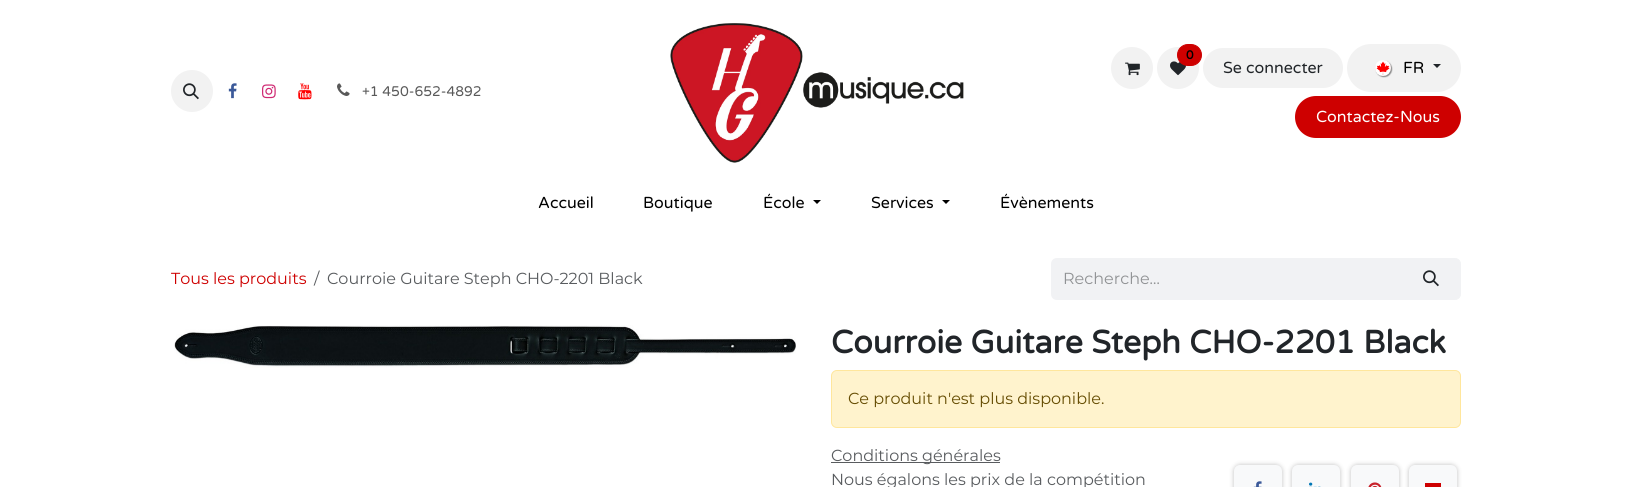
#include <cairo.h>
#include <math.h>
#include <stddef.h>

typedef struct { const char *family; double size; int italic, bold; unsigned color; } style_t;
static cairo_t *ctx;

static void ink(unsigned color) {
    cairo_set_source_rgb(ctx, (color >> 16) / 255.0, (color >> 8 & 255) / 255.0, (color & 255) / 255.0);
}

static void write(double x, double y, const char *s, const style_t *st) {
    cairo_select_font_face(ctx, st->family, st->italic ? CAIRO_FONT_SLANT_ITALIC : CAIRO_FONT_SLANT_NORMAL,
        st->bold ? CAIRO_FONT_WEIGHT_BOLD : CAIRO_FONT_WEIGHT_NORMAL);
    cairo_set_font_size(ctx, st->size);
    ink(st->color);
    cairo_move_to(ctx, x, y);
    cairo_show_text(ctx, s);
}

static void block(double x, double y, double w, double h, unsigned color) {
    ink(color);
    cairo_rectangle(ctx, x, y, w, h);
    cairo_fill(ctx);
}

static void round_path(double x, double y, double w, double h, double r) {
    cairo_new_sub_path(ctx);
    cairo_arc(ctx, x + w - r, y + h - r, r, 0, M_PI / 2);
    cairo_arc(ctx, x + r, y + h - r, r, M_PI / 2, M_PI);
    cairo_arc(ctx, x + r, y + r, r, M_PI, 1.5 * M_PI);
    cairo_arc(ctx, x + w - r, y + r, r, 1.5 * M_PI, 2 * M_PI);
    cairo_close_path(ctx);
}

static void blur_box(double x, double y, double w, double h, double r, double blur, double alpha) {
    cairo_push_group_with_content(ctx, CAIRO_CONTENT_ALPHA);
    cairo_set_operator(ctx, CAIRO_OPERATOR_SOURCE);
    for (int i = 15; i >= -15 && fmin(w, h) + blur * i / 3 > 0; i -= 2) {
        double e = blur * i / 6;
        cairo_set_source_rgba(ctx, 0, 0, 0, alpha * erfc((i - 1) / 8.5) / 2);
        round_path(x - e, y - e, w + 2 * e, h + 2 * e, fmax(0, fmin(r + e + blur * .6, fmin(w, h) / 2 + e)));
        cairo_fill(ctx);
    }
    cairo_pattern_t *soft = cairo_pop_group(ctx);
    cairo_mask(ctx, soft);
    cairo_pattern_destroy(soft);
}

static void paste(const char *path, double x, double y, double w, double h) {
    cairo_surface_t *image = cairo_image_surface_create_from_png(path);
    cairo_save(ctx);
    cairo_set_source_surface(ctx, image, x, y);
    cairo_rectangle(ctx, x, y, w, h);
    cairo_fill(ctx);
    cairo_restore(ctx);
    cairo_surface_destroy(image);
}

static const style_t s1 = {"Varela Round", 14, 0, 0, 0x595959};
static const style_t s2 = {"Varela Round", 12, 0, 1, 0x000000};
static const style_t s3 = {"Varela Round", 16, 0, 0, 0x212529};
static const style_t s4 = {"Varela Round", 16, 0, 0, 0x000000};
static const style_t s5 = {"Varela Round", 16, 0, 0, 0xffffff};
static const style_t s6 = {"Montserrat", 16, 0, 0, 0xce0000};
static const style_t s7 = {"Montserrat", 16, 0, 0, 0x595c5f};
static const style_t s8 = {"Montserrat", 16, 0, 0, 0x909294};
static const style_t s9 = {"Varela Round", 32, 0, 1, 0x212529};
static const style_t s10 = {"Montserrat", 16, 0, 0, 0x664d03};

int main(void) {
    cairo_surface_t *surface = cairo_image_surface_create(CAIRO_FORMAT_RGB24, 1631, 487);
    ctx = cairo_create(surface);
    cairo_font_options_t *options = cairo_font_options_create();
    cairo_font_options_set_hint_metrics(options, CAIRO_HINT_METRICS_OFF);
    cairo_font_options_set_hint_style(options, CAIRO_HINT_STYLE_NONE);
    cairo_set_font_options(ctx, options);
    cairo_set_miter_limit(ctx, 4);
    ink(0xffffff);
    cairo_paint(ctx);
    ink(0xf2f2f2);
    cairo_arc(ctx, 192, 91, 21, 0, 2 * M_PI);
    cairo_fill(ctx);
    paste("pic1.png", 183, 83, 16, 17);
    paste("pic2.png", 228, 83, 9, 16);
    paste("pic3.png", 262, 84, 14, 15);
    paste("pic4.png", 298, 83, 14, 17);
    paste("pic5.png", 337, 83, 13, 13);
    write(362, 96, "+1 450-652-4892", &s1);
    paste("pic6.png", 670, 23, 294, 140);
    ink(0xf2f2f2);
    cairo_arc(ctx, 1132, 68, 21, 0, 2 * M_PI);
    cairo_fill(ctx);
    paste("pic7.png", 1125, 62, 15, 14);
    cairo_arc(ctx, 1178, 68, 21, 0, 2 * M_PI);
    cairo_fill(ctx);
    paste("pic8.png", 1170, 61, 16, 15);
    ink(0xce0000);
    round_path(1177.5, 44.5, 24, 21, 10.5);
    cairo_fill_preserve(ctx);
    cairo_set_line_width(ctx, 1);
    cairo_stroke(ctx);
    write(1186, 59, "0", &s2);
    ink(0xf2f2f2);
    round_path(1203, 48, 140, 40, 20);
    cairo_fill(ctx);
    write(1223, 73, "Se connecter", &s3);
    ink(0xf2f2f2);
    round_path(1347, 44, 114, 48, 24);
    cairo_fill(ctx);
    ink(0x000000);
    blur_box(1376, 61, 16, 16, 8, 0.5, 0.43);
    paste("pic9.png", 1375, 60, 16, 16);
    write(1403, 73, "FR", &s4);
    ink(0x212529);
    cairo_new_path(ctx);
    cairo_move_to(ctx, 1433, 64);
    cairo_line_to(ctx, 1441, 64);
    cairo_line_to(ctx, 1437, 68);
    cairo_close_path(ctx);
    cairo_fill(ctx);
    ink(0xce0000);
    round_path(1295, 96, 166, 42, 21);
    cairo_fill(ctx);
    write(1316, 122, "Contactez-Nous", &s5);
    write(538, 208, "Accueil", &s4);
    write(643, 208, "Boutique", &s4);
    write(763, 208, "École", &s4);
    cairo_new_path(ctx);
    cairo_move_to(ctx, 813, 200);
    cairo_line_to(ctx, 821, 200);
    cairo_line_to(ctx, 817, 204);
    cairo_close_path(ctx);
    cairo_fill(ctx);
    write(871, 208, "Services", &s4);
    cairo_new_path(ctx);
    cairo_move_to(ctx, 942, 200);
    cairo_line_to(ctx, 950, 200);
    cairo_line_to(ctx, 946, 204);
    cairo_close_path(ctx);
    cairo_fill(ctx);
    write(1000, 208, "Évènements", &s4);
    write(171, 284, "Tous les produits", &s6);
    write(314, 284, "/", &s7);
    write(327, 284, "Courroie Guitare Steph CHO-2201 Black", &s7);
    ink(0xf1f2f4);
    cairo_new_path(ctx);
    cairo_move_to(ctx, 1057, 258);
    cairo_line_to(ctx, 1403, 258);
    cairo_line_to(ctx, 1403, 300);
    cairo_line_to(ctx, 1057, 300);
    cairo_curve_to(ctx, 1053.5, 300, 1051, 297.5, 1051, 294);
    cairo_line_to(ctx, 1051, 264);
    cairo_curve_to(ctx, 1051, 260.5, 1053.5, 258, 1057, 258);
    cairo_close_path(ctx);
    cairo_fill(ctx);
    write(1063, 284, "Recherche…", &s8);
    ink(0xf1f2f4);
    cairo_new_path(ctx);
    cairo_move_to(ctx, 1402.5, 258.5);
    cairo_line_to(ctx, 1455, 258.5);
    cairo_curve_to(ctx, 1458, 258.5, 1460.5, 261, 1460.5, 264);
    cairo_line_to(ctx, 1460.5, 294);
    cairo_curve_to(ctx, 1460.5, 297, 1458, 299.5, 1455, 299.5);
    cairo_line_to(ctx, 1402.5, 299.5);
    cairo_close_path(ctx);
    cairo_fill_preserve(ctx);
    cairo_stroke(ctx);
    paste("pic10.png", 1423, 270, 16, 17);
    paste("pic11.png", 174, 325, 622, 43);
    write(831, 353, "Courroie Guitare Steph CHO-2201 Black", &s9);
    ink(0xfff3cd);
    round_path(831.5, 370.5, 629, 57, 5.5);
    cairo_fill_preserve(ctx);
    ink(0xffe69c);
    cairo_stroke(ctx);
    write(848, 404, "Ce produit n'est plus disponible.", &s10);
    block(831, 462, 169, 1, 0x595c5f);
    write(831, 461, "Conditions générales", &s7);
    write(831, 485, "Nous égalons les prix de la compétition", &s7);
    ink(0x000000);
    blur_box(1234, 465, 48, 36, 6, 2.5, 0.25);
    ink(0xf8f9fa);
    round_path(1234, 465, 48, 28, 6);
    cairo_fill(ctx);
    paste("pic12.png", 1253, 481, 9, 6);
    ink(0x000000);
    blur_box(1292, 465, 48, 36, 6, 2.5, 0.25);
    ink(0xf8f9fa);
    round_path(1292, 465, 48, 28, 6);
    cairo_fill(ctx);
    paste("pic13.png", 1309, 482, 12, 5);
    ink(0x000000);
    blur_box(1351, 465, 48, 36, 6, 2.5, 0.25);
    ink(0xf8f9fa);
    round_path(1351, 465, 48, 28, 6);
    cairo_fill(ctx);
    paste("pic14.png", 1368, 482, 14, 5);
    ink(0x000000);
    blur_box(1409, 465, 48, 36, 6, 2.5, 0.25);
    ink(0xf8f9fa);
    round_path(1409, 465, 48, 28, 6);
    cairo_fill(ctx);
    block(1425, 483, 16, 4, 0xce0000);
    cairo_surface_write_to_png(surface, "screenshot.png");
    cairo_font_options_destroy(options);
    cairo_destroy(ctx);
    cairo_surface_destroy(surface);
    return 0;
}
